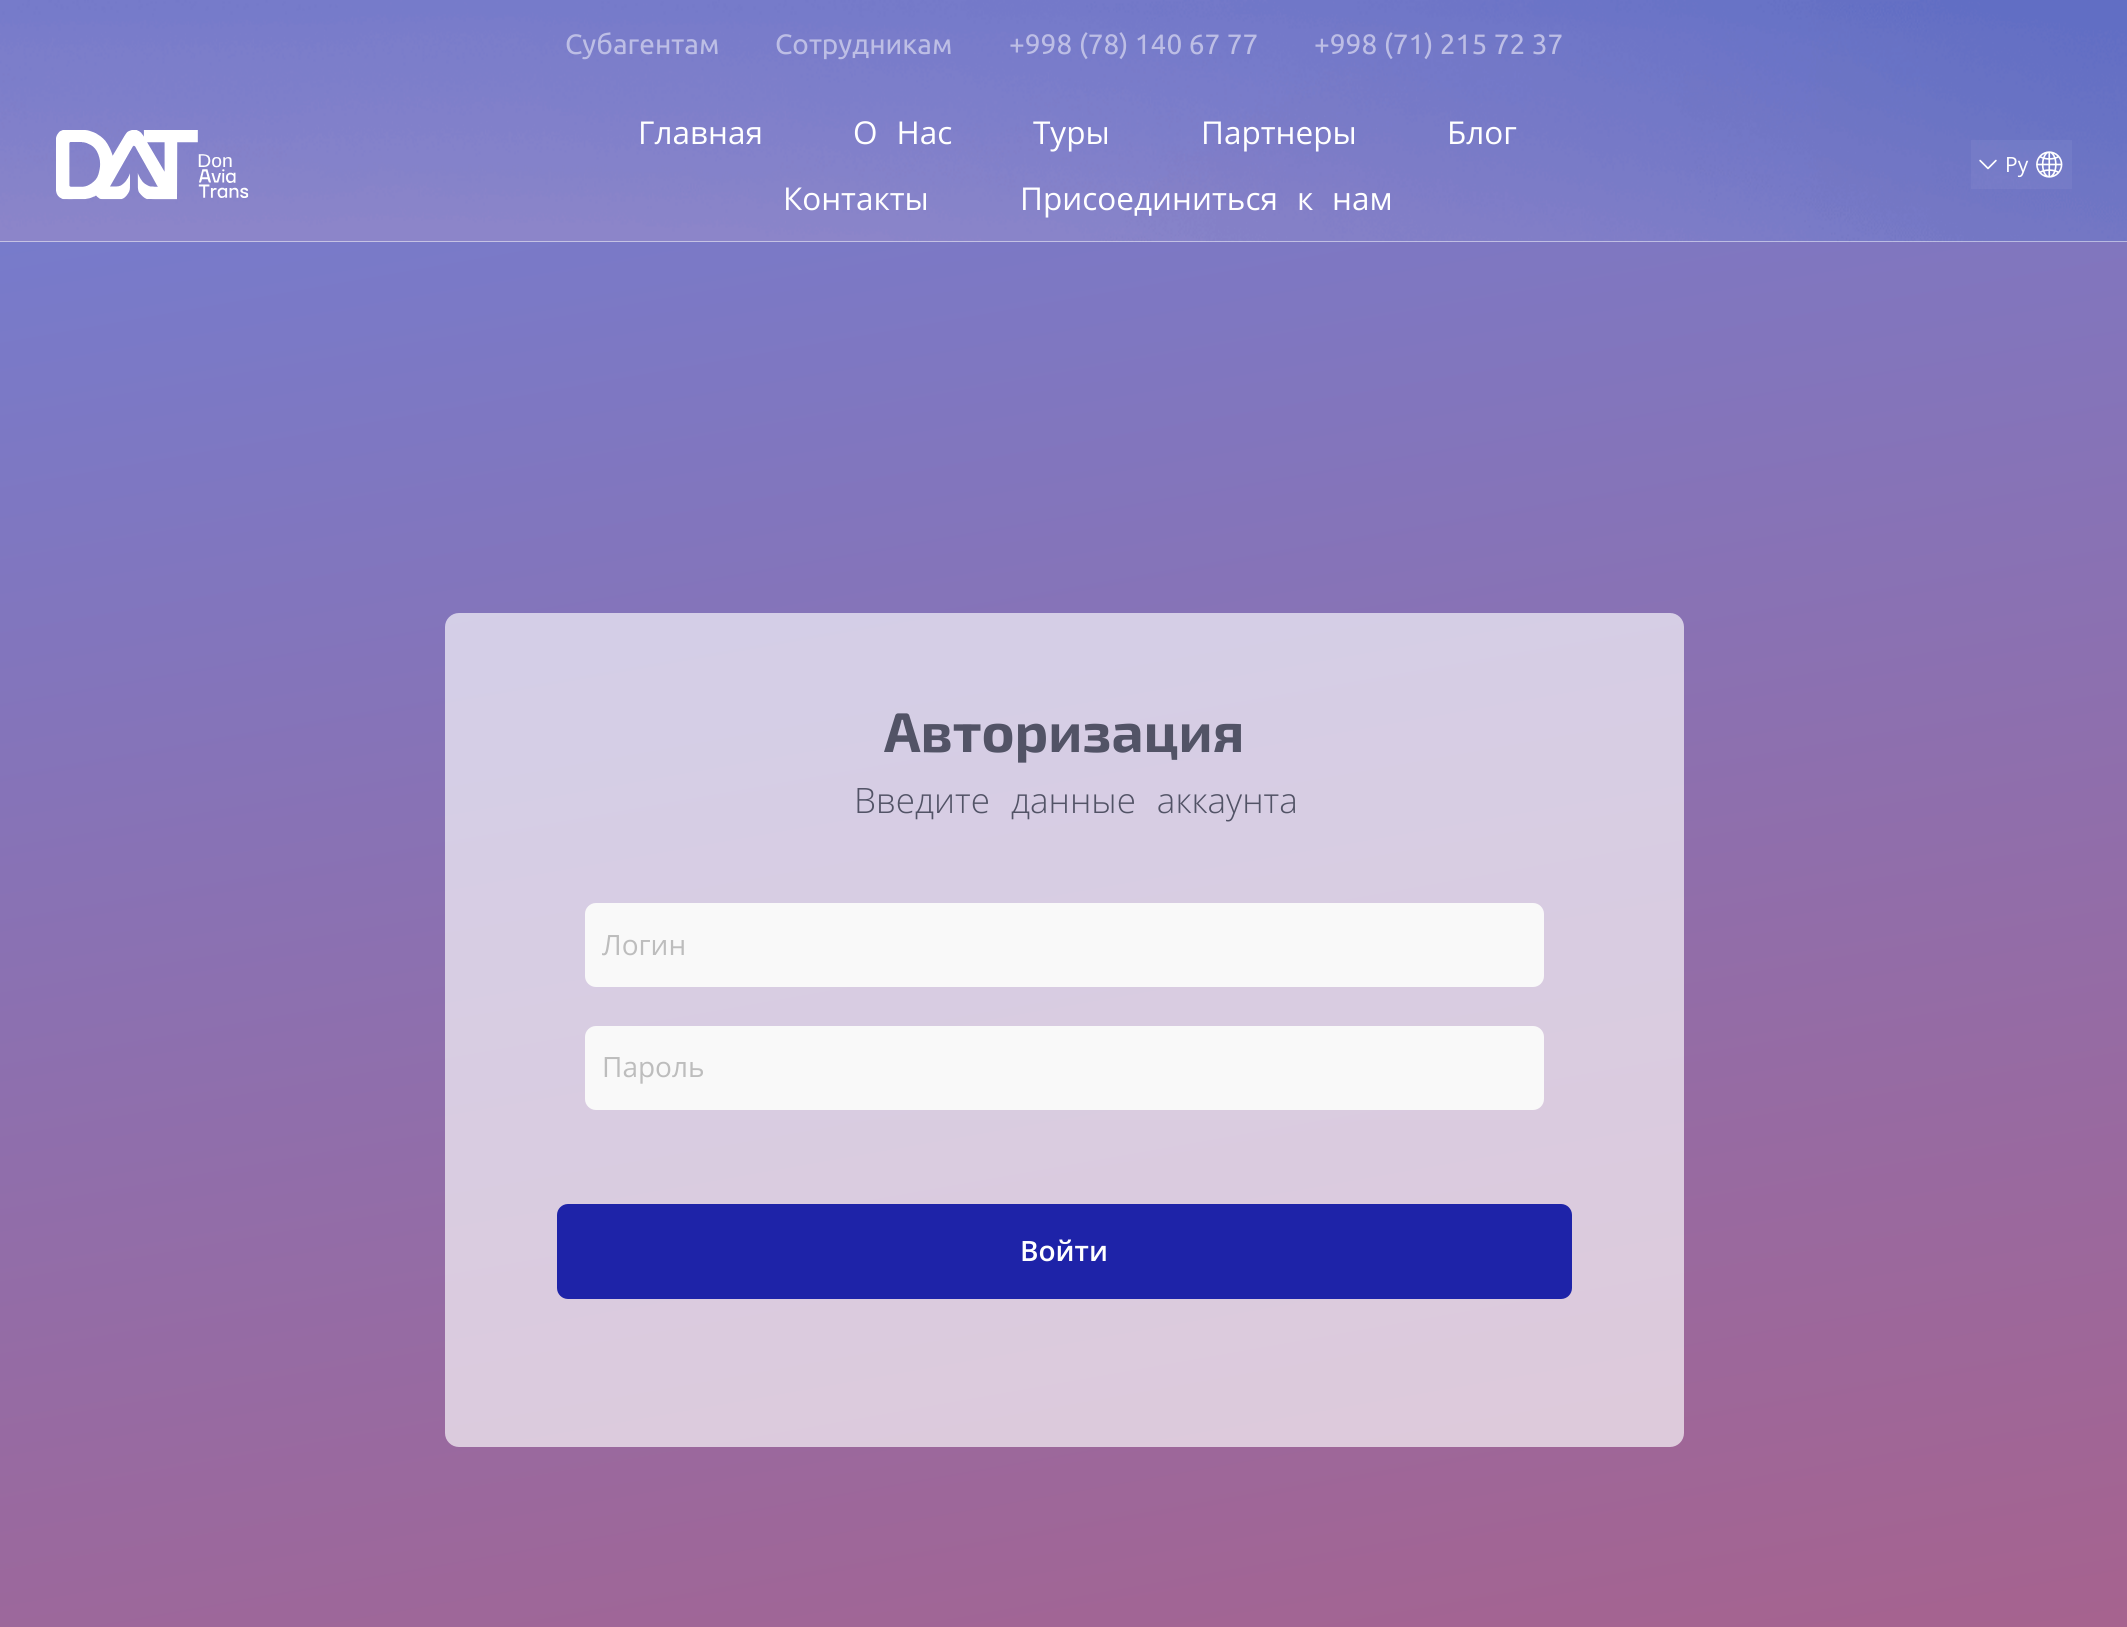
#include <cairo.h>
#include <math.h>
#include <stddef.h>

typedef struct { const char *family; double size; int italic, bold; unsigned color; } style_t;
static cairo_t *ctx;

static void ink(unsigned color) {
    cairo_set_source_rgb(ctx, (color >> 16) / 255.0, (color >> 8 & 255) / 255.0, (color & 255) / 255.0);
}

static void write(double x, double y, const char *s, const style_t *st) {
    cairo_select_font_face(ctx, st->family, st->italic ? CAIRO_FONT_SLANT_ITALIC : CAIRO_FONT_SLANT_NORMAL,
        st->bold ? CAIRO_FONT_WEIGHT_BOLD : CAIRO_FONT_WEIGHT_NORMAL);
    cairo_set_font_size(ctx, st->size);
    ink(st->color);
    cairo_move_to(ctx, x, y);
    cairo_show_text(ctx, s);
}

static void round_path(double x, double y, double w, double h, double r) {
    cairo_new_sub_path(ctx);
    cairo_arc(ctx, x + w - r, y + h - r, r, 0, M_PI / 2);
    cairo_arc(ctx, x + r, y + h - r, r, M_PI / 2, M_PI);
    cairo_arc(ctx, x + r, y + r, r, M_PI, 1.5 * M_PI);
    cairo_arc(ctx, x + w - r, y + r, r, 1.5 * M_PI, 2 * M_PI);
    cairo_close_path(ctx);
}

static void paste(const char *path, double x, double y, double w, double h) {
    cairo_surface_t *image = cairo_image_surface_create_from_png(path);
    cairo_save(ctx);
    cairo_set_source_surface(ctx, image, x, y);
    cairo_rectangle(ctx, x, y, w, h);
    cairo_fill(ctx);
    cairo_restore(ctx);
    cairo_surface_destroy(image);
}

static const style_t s1 = {"Ubuntu", 28, 0, 0, 0xbdbee5};
static const style_t s2 = {"Open Sans", 31.5, 0, 0, 0xffffff};
static const style_t s3 = {"Open Sans", 21, 0, 0, 0xffffff};
static const style_t s4 = {"Exo 2", 56, 0, 1, 0x525366};
static const style_t s5 = {"Open Sans Light", 35, 0, 0, 0x525366};
static const style_t s6 = {"Open Sans", 28, 0, 0, 0xbdbdbd};
static const style_t s7 = {"Open Sans SemiBold", 28, 0, 0, 0xffffff};

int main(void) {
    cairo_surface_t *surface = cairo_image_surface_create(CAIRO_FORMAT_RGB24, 2127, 1627);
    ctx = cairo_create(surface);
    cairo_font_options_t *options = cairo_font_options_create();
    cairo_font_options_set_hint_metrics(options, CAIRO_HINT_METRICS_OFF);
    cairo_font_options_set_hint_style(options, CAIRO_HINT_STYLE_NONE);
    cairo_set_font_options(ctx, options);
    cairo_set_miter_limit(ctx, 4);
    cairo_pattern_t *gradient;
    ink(0xffffff);
    cairo_paint(ctx);
    paste("pic1.png", 0, 0, 2127, 242);
    write(565, 54, "Субагентам", &s1);
    write(775, 54, "Сотрудникам", &s1);
    write(1009, 54, "+998 (78) 140 67 77", &s1);
    write(1314, 54, "+998 (71) 215 72 37", &s1);
    paste("pic2.png", 56, 130, 193, 70);
    write(638, 144, "Главная", &s2);
    write(853, 144, "О Нас", &s2);
    write(1033, 144, "Туры", &s2);
    write(1201, 144, "Партнеры", &s2);
    write(1447, 144, "Блог", &s2);
    write(783, 210, "Контакты", &s2);
    write(1020, 210, "Присоединиться к нам", &s2);
    cairo_set_source_rgba(ctx, 1, 1, 1, 0.05);
    cairo_rectangle(ctx, 1971, 140, 101, 49);
    cairo_fill(ctx);
    paste("pic3.png", 1979, 159, 18, 11);
    write(2005, 172, "Ру", &s3);
    paste("pic4.png", 2036, 151, 27, 27);
    gradient = cairo_pattern_create_linear(897, 83, 1231, 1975);
    cairo_pattern_add_color_stop_rgba(gradient, 0, 0.467, 0.482, 0.796, 1);
    cairo_pattern_add_color_stop_rgba(gradient, 1, 0.671, 0.376, 0.533, 1);
    cairo_set_source(ctx, gradient);
    cairo_pattern_destroy(gradient);
    cairo_rectangle(ctx, 0, 242, 2127, 1385);
    cairo_fill(ctx);
    cairo_set_source_rgba(ctx, 1, 1, 1, 0.65);
    round_path(445, 613, 1239, 834, 14);
    cairo_fill(ctx);
    write(884, 752, "Авторизация", &s4);
    write(854, 813, "Введите данные аккаунта", &s5);
    ink(0xf9f9f9);
    round_path(585, 903, 959, 84, 11);
    cairo_fill(ctx);
    write(602, 955, "Логин", &s6);
    ink(0xf9f9f9);
    round_path(585, 1026, 959, 84, 11);
    cairo_fill(ctx);
    write(602, 1077, "Пароль", &s6);
    ink(0x1e23a8);
    round_path(557, 1204, 1015, 95, 11);
    cairo_fill(ctx);
    write(1020, 1261, "Войти", &s7);
    cairo_surface_write_to_png(surface, "screenshot.png");
    cairo_font_options_destroy(options);
    cairo_destroy(ctx);
    cairo_surface_destroy(surface);
    return 0;
}
